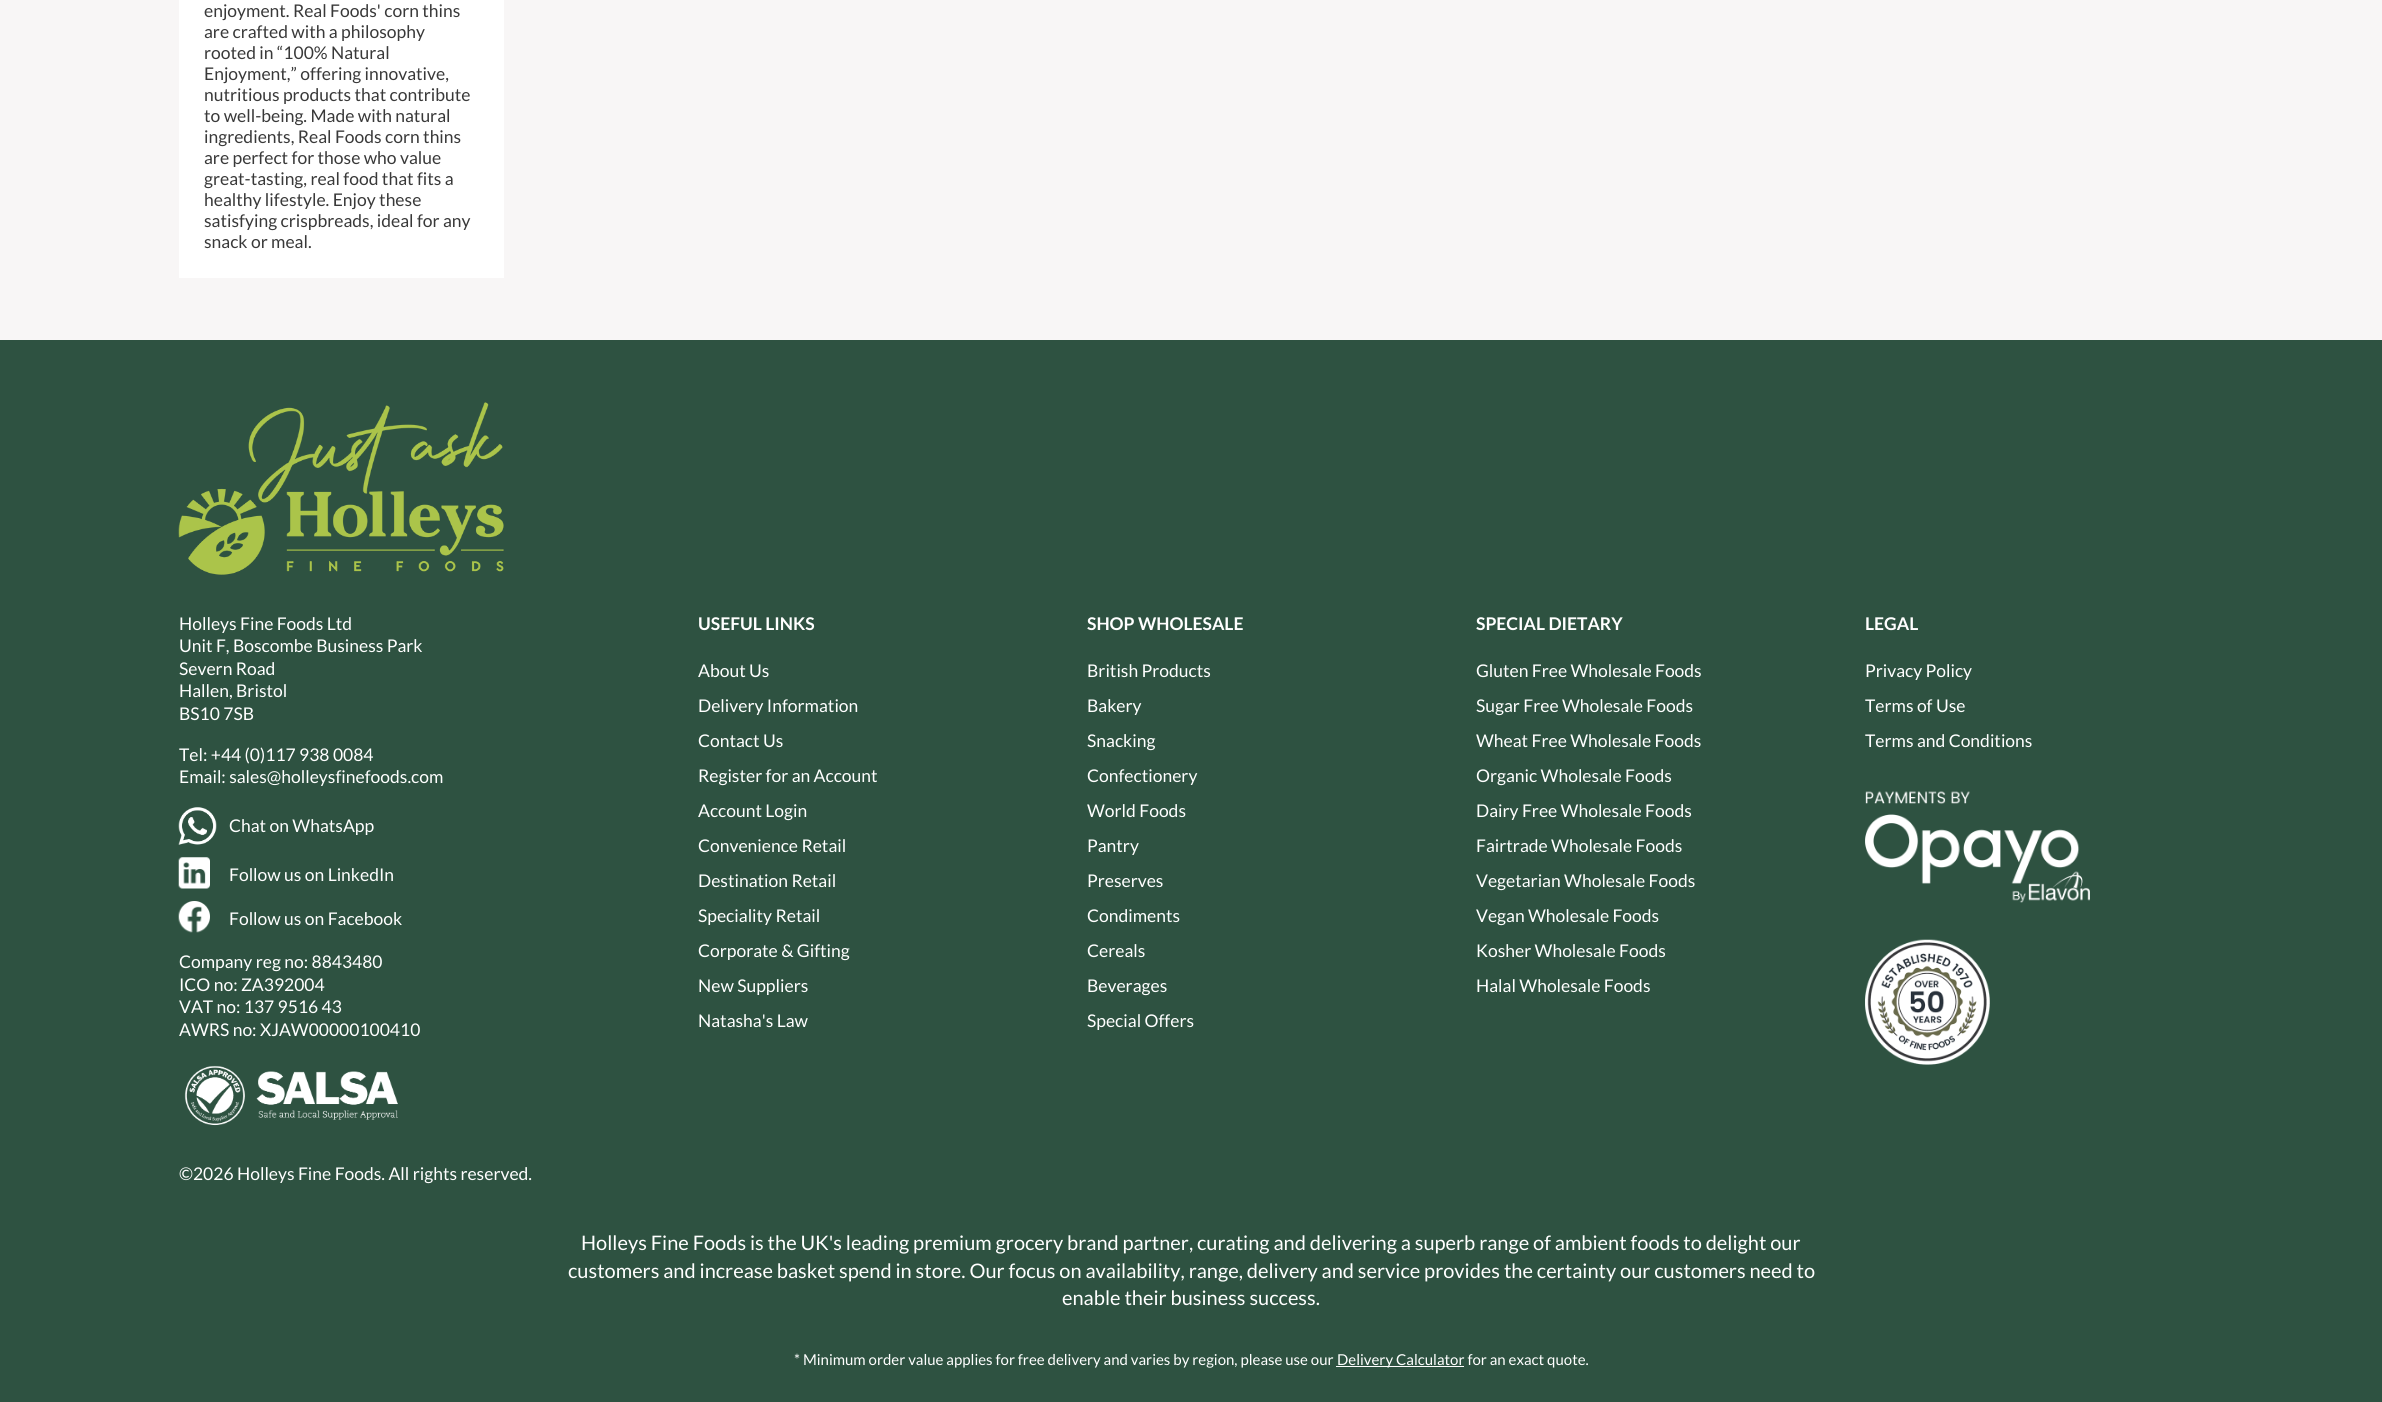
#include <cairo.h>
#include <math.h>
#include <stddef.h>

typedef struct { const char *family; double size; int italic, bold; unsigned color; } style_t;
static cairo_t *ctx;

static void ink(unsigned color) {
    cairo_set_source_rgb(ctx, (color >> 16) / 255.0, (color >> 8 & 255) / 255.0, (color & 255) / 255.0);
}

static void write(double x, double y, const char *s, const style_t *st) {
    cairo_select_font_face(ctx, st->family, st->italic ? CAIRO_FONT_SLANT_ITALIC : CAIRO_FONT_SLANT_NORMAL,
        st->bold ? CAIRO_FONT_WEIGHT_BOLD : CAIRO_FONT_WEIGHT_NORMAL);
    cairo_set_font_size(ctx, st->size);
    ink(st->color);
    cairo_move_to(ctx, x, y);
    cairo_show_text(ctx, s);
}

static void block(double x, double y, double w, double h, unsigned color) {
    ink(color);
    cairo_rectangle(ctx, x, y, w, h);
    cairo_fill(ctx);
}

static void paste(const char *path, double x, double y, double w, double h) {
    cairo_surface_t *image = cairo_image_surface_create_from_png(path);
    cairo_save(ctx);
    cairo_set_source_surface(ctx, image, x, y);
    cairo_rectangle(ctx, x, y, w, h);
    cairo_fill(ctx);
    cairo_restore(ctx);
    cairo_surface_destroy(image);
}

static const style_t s1 = {"Lato", 17.5, 0, 0, 0x393939};
static const style_t s2 = {"Lato", 17.5, 0, 0, 0xffffff};
static const style_t s3 = {"Lato", 17.5, 0, 1, 0xffffff};
static const style_t s4 = {"Lato", 20, 0, 0, 0xffffff};
static const style_t s5 = {"Lato", 15, 0, 0, 0xffffff};

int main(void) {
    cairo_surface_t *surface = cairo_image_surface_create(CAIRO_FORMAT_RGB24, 2382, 1402);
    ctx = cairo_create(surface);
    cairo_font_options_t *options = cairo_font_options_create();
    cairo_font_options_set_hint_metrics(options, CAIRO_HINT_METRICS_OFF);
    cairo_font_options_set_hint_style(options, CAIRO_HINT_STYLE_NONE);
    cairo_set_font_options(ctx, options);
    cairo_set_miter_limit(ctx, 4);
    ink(0xf8f6f6);
    cairo_paint(ctx);
    block(179, 0, 325, 278, 0xffffff);
    write(204, 17, "enjoyment. Real Foods' corn thins", &s1);
    write(204, 38, "are crafted with a philosophy", &s1);
    write(204, 59, "rooted in “100% Natural", &s1);
    write(204, 80, "Enjoyment,” offering innovative,", &s1);
    write(204, 101, "nutritious products that contribute", &s1);
    write(204, 122, "to well-being. Made with natural", &s1);
    write(204, 143, "ingredients, Real Foods corn thins", &s1);
    write(204, 164, "are perfect for those who value", &s1);
    write(204, 185, "great-tasting, real food that fits a", &s1);
    write(204, 206, "healthy lifestyle. Enjoy these", &s1);
    write(204, 227, "satisfying crispbreads, ideal for any", &s1);
    write(204, 248, "snack or meal.", &s1);
    block(0, 340, 2382, 1062, 0x2e5241);
    paste("pic1.png", 178, 402, 326, 173);
    write(179, 630, "Holleys Fine Foods Ltd", &s2);
    write(179, 652, "Unit F, Boscombe Business Park", &s2);
    write(179, 675, "Severn Road", &s2);
    write(179, 697, "Hallen, Bristol", &s2);
    write(179, 720, "BS10 7SB", &s2);
    write(179, 761, "Tel: +44 (0)117 938 0084", &s2);
    write(179, 783, "Email: sales@holleysfinefoods.com", &s2);
    paste("pic2.png", 178, 807, 39, 38);
    write(229, 832, "Chat on WhatsApp", &s2);
    paste("pic3.png", 178, 857, 32, 32);
    write(229, 881, "Follow us on LinkedIn", &s2);
    paste("pic4.png", 178, 901, 32, 32);
    write(229, 925, "Follow us on Facebook", &s2);
    write(179, 968, "Company reg no: 8843480", &s2);
    write(179, 991, "ICO no: ZA392004", &s2);
    write(179, 1013, "VAT no: 137 9516 43", &s2);
    write(179, 1036, "AWRS no: XJAW00000100410", &s2);
    paste("pic5.png", 184, 1065, 214, 61);
    write(179, 1180, "©2026 Holleys Fine Foods. All rights reserved.", &s2);
    write(698, 630, "USEFUL LINKS", &s3);
    write(698, 677, "About Us", &s2);
    write(698, 712, "Delivery Information", &s2);
    write(698, 747, "Contact Us", &s2);
    write(698, 782, "Register for an Account", &s2);
    write(698, 817, "Account Login", &s2);
    write(698, 852, "Convenience Retail", &s2);
    write(698, 887, "Destination Retail", &s2);
    write(698, 922, "Speciality Retail", &s2);
    write(698, 957, "Corporate & Gifting", &s2);
    write(698, 992, "New Suppliers", &s2);
    write(698, 1027, "Natasha's Law", &s2);
    write(1087, 630, "SHOP WHOLESALE", &s3);
    write(1087, 677, "British Products", &s2);
    write(1087, 712, "Bakery", &s2);
    write(1087, 747, "Snacking", &s2);
    write(1087, 782, "Confectionery", &s2);
    write(1087, 817, "World Foods", &s2);
    write(1087, 852, "Pantry", &s2);
    write(1087, 887, "Preserves", &s2);
    write(1087, 922, "Condiments", &s2);
    write(1087, 957, "Cereals", &s2);
    write(1087, 992, "Beverages", &s2);
    write(1087, 1027, "Special Offers", &s2);
    write(1476, 630, "SPECIAL DIETARY", &s3);
    write(1476, 677, "Gluten Free Wholesale Foods", &s2);
    write(1476, 712, "Sugar Free Wholesale Foods", &s2);
    write(1476, 747, "Wheat Free Wholesale Foods", &s2);
    write(1476, 782, "Organic Wholesale Foods", &s2);
    write(1476, 817, "Dairy Free Wholesale Foods", &s2);
    write(1476, 852, "Fairtrade Wholesale Foods", &s2);
    write(1476, 887, "Vegetarian Wholesale Foods", &s2);
    write(1476, 922, "Vegan Wholesale Foods", &s2);
    write(1476, 957, "Kosher Wholesale Foods", &s2);
    write(1476, 992, "Halal Wholesale Foods", &s2);
    write(1865, 630, "LEGAL", &s3);
    write(1865, 677, "Privacy Policy", &s2);
    write(1865, 712, "Terms of Use", &s2);
    write(1865, 747, "Terms and Conditions", &s2);
    paste("pic6.png", 1865, 791, 225, 112);
    paste("pic7.png", 1865, 939, 125, 126);
    write(581, 1250, "Holleys Fine Foods is the UK's leading premium grocery brand partner, curating and delivering a superb range of ambient foods to delight our", &s4);
    write(568, 1278, "customers and increase basket spend in store. Our focus on availability, range, delivery and service provides the certainty our customers need to", &s4);
    write(1062, 1305, "enable their business success.", &s4);
    write(794, 1365, "* Minimum order value applies for free delivery and varies by region, please use our", &s5);
    block(1336, 1366, 128, 1, 0xffffff);
    write(1337, 1365, "Delivery Calculator for an exact quote.", &s5);
    cairo_surface_write_to_png(surface, "screenshot.png");
    cairo_font_options_destroy(options);
    cairo_destroy(ctx);
    cairo_surface_destroy(surface);
    return 0;
}
